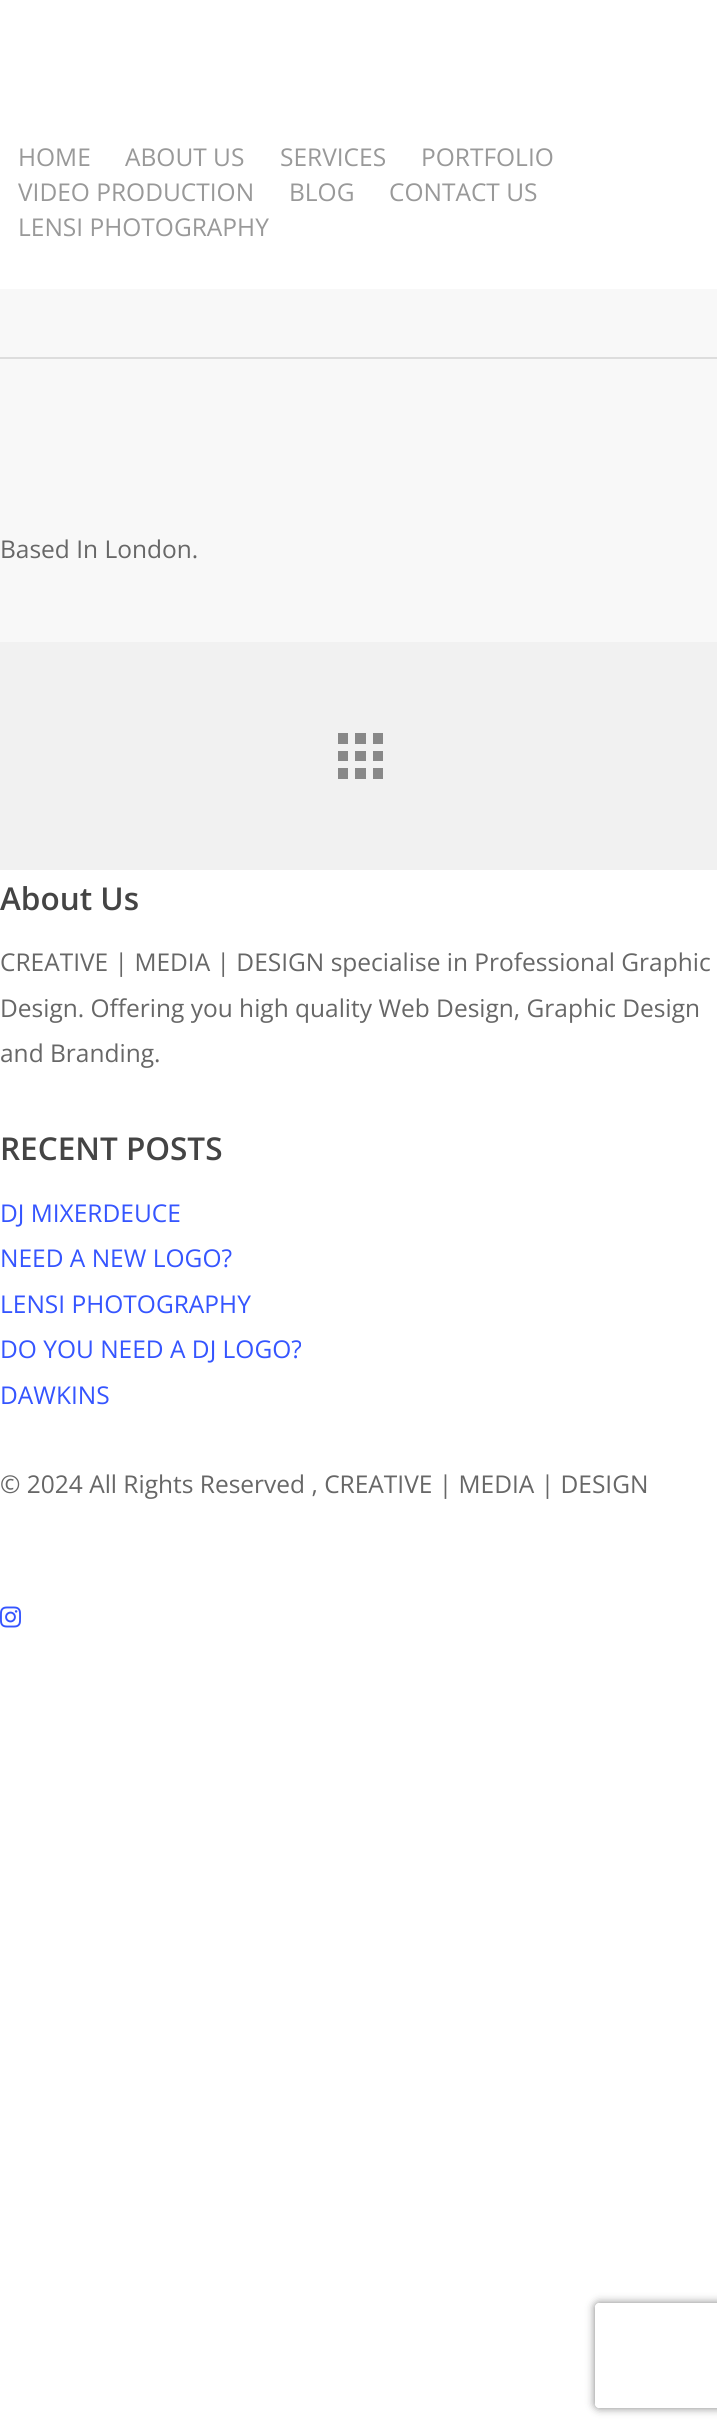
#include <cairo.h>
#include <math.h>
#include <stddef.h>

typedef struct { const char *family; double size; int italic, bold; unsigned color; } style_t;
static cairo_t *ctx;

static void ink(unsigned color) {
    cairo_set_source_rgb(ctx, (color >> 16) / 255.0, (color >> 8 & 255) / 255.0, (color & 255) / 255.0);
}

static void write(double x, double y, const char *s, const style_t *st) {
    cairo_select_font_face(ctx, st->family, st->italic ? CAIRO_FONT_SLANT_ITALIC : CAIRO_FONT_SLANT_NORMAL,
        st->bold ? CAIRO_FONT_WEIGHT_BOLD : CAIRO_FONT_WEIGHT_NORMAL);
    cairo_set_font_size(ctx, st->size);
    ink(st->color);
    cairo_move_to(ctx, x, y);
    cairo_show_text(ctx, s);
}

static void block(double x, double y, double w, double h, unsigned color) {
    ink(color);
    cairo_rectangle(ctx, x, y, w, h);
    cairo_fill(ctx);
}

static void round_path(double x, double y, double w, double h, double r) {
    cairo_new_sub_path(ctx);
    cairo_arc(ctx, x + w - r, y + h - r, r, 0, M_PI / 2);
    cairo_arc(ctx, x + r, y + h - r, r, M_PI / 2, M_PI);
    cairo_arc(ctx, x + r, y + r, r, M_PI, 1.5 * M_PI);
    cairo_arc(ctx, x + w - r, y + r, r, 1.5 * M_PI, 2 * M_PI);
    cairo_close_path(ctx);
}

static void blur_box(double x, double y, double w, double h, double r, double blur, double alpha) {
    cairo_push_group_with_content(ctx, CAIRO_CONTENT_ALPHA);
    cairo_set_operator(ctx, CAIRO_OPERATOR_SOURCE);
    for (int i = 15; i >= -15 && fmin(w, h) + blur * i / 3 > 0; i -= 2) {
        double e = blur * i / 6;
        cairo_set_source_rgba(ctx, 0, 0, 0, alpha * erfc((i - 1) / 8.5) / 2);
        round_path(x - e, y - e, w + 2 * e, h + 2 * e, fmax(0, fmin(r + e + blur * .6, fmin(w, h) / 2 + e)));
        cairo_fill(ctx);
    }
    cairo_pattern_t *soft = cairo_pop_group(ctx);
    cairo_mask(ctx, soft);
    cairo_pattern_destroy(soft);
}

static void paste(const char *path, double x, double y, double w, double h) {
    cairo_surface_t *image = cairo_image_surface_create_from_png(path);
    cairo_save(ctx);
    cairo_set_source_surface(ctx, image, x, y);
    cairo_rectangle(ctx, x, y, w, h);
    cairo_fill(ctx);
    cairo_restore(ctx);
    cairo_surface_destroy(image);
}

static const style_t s1 = {"Open Sans", 24.5, 0, 0, 0x999999};
static const style_t s2 = {"Open Sans", 24.5, 0, 0, 0x676767};
static const style_t s3 = {"Open Sans SemiBold", 31.5, 0, 0, 0x444444};
static const style_t s4 = {"Open Sans", 24.5, 0, 0, 0x3555ff};

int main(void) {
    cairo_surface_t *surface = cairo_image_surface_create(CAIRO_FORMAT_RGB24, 717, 2431);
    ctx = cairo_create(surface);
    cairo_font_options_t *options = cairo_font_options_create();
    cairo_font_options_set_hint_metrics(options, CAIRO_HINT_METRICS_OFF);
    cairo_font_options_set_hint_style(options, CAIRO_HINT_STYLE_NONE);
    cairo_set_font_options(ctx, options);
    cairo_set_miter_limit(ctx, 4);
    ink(0xffffff);
    cairo_paint(ctx);
    write(18, 166, "HOME", &s1);
    write(125, 166, "ABOUT US", &s1);
    write(280, 166, "SERVICES", &s1);
    write(421, 166, "PORTFOLIO", &s1);
    write(18, 201, "VIDEO PRODUCTION", &s1);
    write(289, 201, "BLOG", &s1);
    write(389, 201, "CONTACT US", &s1);
    write(18, 236, "LENSI PHOTOGRAPHY", &s1);
    block(0, 289, 717, 353, 0xf8f8f8);
    block(0, 357, 717, 2, 0xdddddd);
    write(0, 558, "Based In London.", &s2);
    block(0, 642, 717, 228, 0xf1f1f1);
    block(373, 768, 10, 11, 0x888888);
    block(355, 768, 11, 11, 0x888888);
    block(338, 733, 10, 11, 0x888888);
    block(355, 733, 11, 11, 0x888888);
    block(373, 733, 10, 11, 0x888888);
    block(373, 751, 10, 10, 0x888888);
    block(338, 768, 10, 11, 0x888888);
    block(338, 751, 10, 10, 0x888888);
    block(355, 751, 11, 10, 0x888888);
    write(0, 910, "About Us", &s3);
    write(0, 971, "CREATIVE | MEDIA | DESIGN specialise in Professional Graphic", &s2);
    write(0, 1017, "Design. Offering you high quality Web Design, Graphic Design", &s2);
    write(0, 1062, "and Branding.", &s2);
    write(0, 1160, "RECENT POSTS", &s3);
    write(0, 1222, "DJ MIXERDEUCE", &s4);
    write(0, 1267, "NEED A NEW LOGO?", &s4);
    write(0, 1313, "LENSI PHOTOGRAPHY", &s4);
    write(0, 1358, "DO YOU NEED A DJ LOGO?", &s4);
    write(0, 1404, "DAWKINS", &s4);
    write(0, 1493, "© 2024 All Rights Reserved , CREATIVE | MEDIA | DESIGN", &s2);
    paste("pic1.png", 0, 1606, 21, 22);
    cairo_save(ctx);
    cairo_set_fill_rule(ctx, CAIRO_FILL_RULE_EVEN_ODD);
    cairo_new_path(ctx);
    cairo_move_to(ctx, 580, 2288);
    cairo_line_to(ctx, 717, 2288);
    cairo_line_to(ctx, 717, 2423);
    cairo_line_to(ctx, 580, 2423);
    cairo_close_path(ctx);
    cairo_move_to(ctx, 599, 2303);
    cairo_line_to(ctx, 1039, 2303);
    cairo_curve_to(ctx, 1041, 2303, 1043, 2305, 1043, 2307);
    cairo_line_to(ctx, 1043, 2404);
    cairo_curve_to(ctx, 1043, 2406, 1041, 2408, 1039, 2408);
    cairo_line_to(ctx, 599, 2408);
    cairo_curve_to(ctx, 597, 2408, 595, 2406, 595, 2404);
    cairo_line_to(ctx, 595, 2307);
    cairo_curve_to(ctx, 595, 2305, 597, 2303, 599, 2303);
    cairo_close_path(ctx);
    cairo_clip(ctx);
    ink(0x808080);
    blur_box(595, 2303, 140, 105, 4, 4.5, 1);
    cairo_restore(ctx);
    cairo_surface_write_to_png(surface, "screenshot.png");
    cairo_font_options_destroy(options);
    cairo_destroy(ctx);
    cairo_surface_destroy(surface);
    return 0;
}
